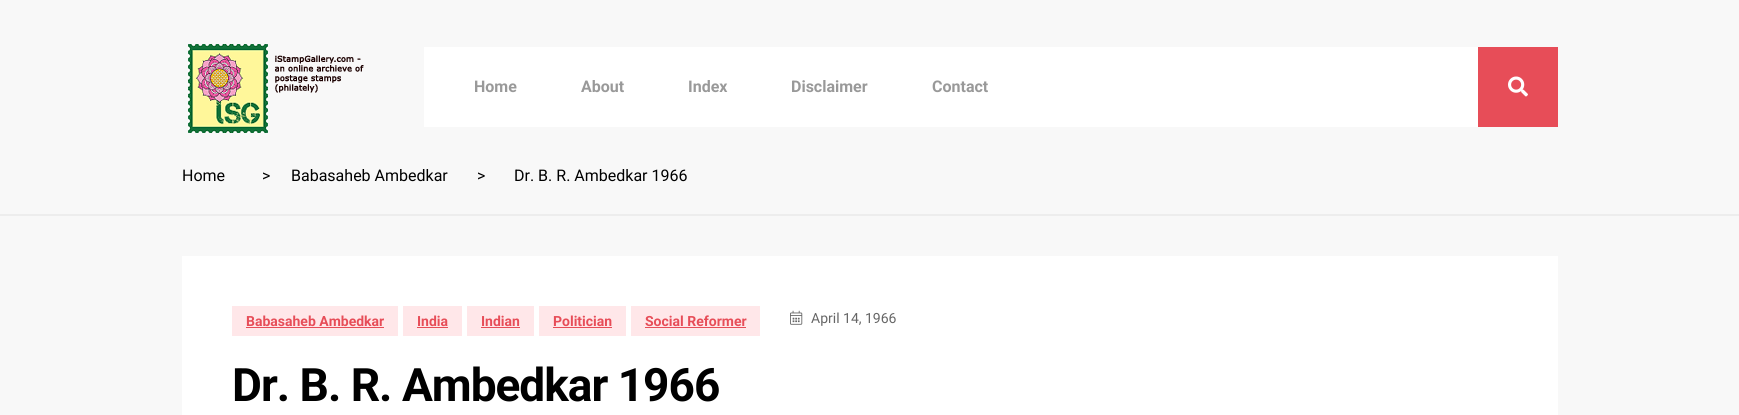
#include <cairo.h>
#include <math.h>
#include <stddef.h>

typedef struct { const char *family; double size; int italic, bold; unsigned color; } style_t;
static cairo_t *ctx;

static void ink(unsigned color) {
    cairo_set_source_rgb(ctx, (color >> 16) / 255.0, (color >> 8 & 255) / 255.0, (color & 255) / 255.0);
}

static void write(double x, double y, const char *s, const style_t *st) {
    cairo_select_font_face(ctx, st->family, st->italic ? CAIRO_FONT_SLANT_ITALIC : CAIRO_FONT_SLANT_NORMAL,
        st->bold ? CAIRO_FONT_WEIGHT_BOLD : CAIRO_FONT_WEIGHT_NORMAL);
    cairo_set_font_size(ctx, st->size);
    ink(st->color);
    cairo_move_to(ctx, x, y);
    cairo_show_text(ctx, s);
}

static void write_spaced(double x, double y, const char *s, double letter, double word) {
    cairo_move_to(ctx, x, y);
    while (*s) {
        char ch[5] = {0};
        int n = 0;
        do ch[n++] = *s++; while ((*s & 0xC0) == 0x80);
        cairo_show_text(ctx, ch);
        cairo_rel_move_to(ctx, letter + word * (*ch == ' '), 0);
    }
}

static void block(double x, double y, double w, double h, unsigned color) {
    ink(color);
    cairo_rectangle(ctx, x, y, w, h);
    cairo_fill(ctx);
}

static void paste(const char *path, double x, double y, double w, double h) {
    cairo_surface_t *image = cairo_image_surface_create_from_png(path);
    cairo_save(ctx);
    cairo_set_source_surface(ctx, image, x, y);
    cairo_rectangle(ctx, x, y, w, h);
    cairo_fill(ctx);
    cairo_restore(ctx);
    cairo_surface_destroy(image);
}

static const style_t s1 = {"Roboto", 16, 0, 1, 0x999999};
static const style_t s2 = {"Roboto", 16, 0, 0, 0x000000};
static const style_t s3 = {"Roboto", 14, 0, 1, 0xe74d58};
static const style_t s4 = {"Roboto", 14, 0, 0, 0x666666};

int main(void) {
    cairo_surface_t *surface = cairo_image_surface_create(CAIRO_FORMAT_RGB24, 1739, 415);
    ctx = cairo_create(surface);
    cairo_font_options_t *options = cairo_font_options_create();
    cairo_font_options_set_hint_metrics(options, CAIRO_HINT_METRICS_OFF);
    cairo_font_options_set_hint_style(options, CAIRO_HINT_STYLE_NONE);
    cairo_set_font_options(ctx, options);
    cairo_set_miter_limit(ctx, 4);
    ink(0xf8f8f8);
    cairo_paint(ctx);
    paste("pic1.png", 188, 44, 176, 89);
    block(424, 47, 1054, 80, 0xffffff);
    write(474, 92, "Home", &s1);
    write(581, 92, "About", &s1);
    write(688, 92, "Index", &s1);
    write(791, 92, "Disclaimer", &s1);
    write(932, 92, "Contact", &s1);
    block(1478, 47, 80, 80, 0xe74d58);
    paste("pic2.png", 1508, 76, 20, 21);
    block(0, 214, 1739, 2, 0xededed);
    write(182, 181, "Home", &s2);
    write(262, 181, ">", &s2);
    write(291, 181, "Babasaheb Ambedkar", &s2);
    write(477, 181, ">", &s2);
    write(514, 181, "Dr. B. R. Ambedkar 1966", &s2);
    block(182, 256, 1376, 159, 0xffffff);
    block(232, 306, 166, 30, 0xffe7e9);
    write(246, 326, "Babasaheb Ambedkar", &s3);
    block(246, 327, 138, 1, 0xe74d58);
    block(403, 306, 59, 30, 0xffe7e9);
    write(417, 326, "India", &s3);
    block(417, 327, 31, 1, 0xe74d58);
    block(467, 306, 67, 30, 0xffe7e9);
    write(481, 326, "Indian", &s3);
    block(481, 327, 39, 1, 0xe74d58);
    block(539, 306, 87, 30, 0xffe7e9);
    write(553, 326, "Politician", &s3);
    block(553, 327, 59, 1, 0xe74d58);
    block(631, 306, 129, 30, 0xffe7e9);
    write(645, 326, "Social Reformer", &s3);
    block(645, 327, 101, 1, 0xe74d58);
    paste("pic3.png", 790, 310, 13, 15);
    write(811, 323, "April 14, 1966", &s4);
    cairo_select_font_face(ctx, "Roboto", CAIRO_FONT_SLANT_NORMAL, CAIRO_FONT_WEIGHT_BOLD);
    cairo_set_font_size(ctx, 46);
    ink(0x000000);
    write_spaced(232, 401, "Dr. B. R. Ambedkar 1966", -1, 0);
    cairo_surface_write_to_png(surface, "screenshot.png");
    cairo_font_options_destroy(options);
    cairo_destroy(ctx);
    cairo_surface_destroy(surface);
    return 0;
}
